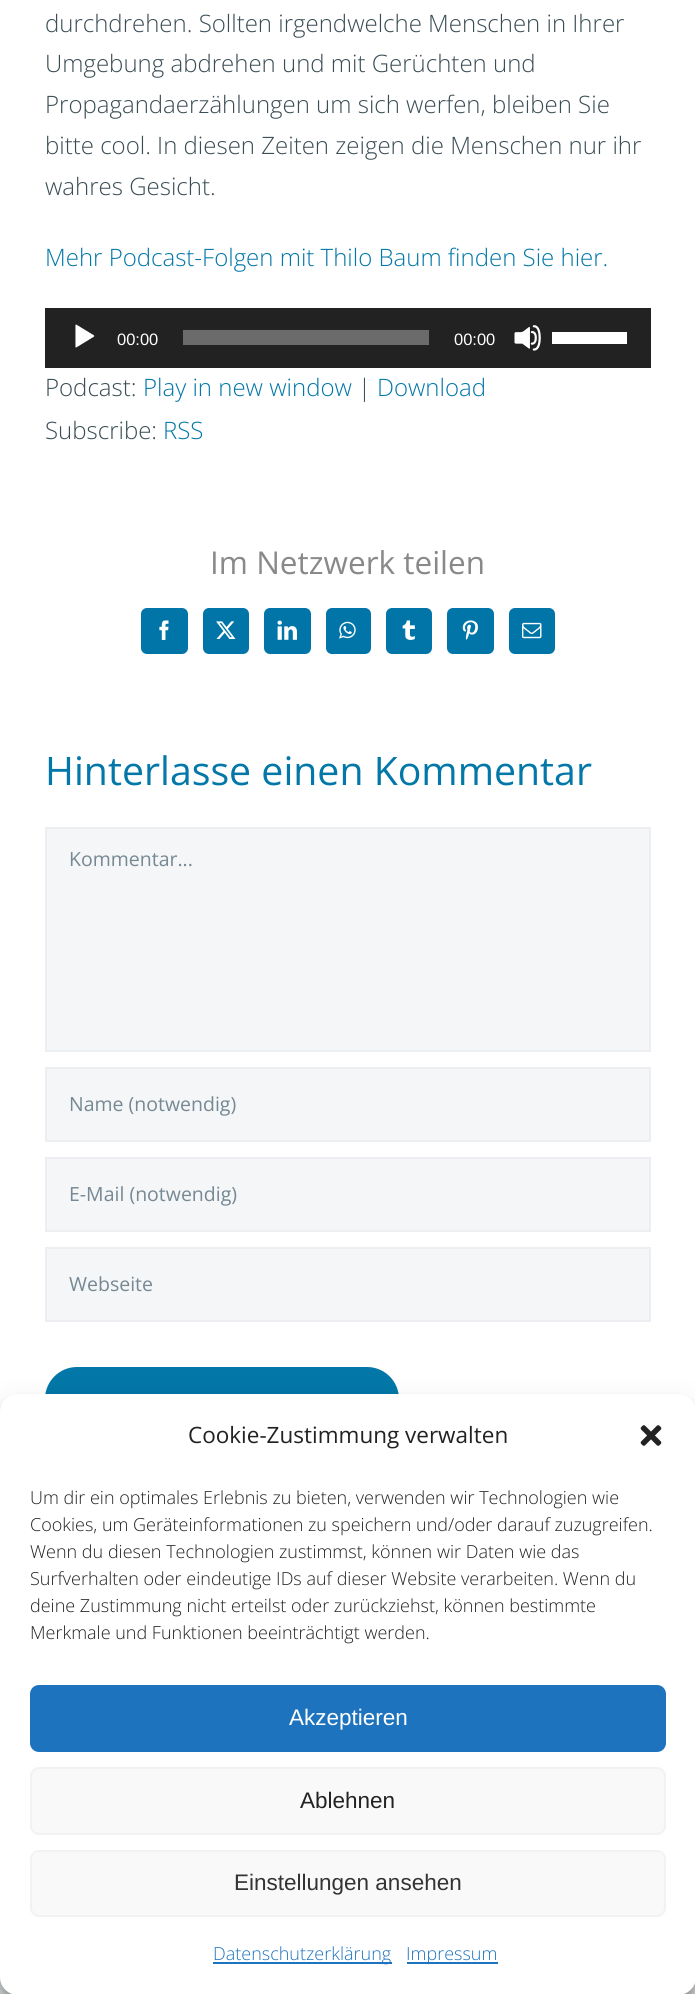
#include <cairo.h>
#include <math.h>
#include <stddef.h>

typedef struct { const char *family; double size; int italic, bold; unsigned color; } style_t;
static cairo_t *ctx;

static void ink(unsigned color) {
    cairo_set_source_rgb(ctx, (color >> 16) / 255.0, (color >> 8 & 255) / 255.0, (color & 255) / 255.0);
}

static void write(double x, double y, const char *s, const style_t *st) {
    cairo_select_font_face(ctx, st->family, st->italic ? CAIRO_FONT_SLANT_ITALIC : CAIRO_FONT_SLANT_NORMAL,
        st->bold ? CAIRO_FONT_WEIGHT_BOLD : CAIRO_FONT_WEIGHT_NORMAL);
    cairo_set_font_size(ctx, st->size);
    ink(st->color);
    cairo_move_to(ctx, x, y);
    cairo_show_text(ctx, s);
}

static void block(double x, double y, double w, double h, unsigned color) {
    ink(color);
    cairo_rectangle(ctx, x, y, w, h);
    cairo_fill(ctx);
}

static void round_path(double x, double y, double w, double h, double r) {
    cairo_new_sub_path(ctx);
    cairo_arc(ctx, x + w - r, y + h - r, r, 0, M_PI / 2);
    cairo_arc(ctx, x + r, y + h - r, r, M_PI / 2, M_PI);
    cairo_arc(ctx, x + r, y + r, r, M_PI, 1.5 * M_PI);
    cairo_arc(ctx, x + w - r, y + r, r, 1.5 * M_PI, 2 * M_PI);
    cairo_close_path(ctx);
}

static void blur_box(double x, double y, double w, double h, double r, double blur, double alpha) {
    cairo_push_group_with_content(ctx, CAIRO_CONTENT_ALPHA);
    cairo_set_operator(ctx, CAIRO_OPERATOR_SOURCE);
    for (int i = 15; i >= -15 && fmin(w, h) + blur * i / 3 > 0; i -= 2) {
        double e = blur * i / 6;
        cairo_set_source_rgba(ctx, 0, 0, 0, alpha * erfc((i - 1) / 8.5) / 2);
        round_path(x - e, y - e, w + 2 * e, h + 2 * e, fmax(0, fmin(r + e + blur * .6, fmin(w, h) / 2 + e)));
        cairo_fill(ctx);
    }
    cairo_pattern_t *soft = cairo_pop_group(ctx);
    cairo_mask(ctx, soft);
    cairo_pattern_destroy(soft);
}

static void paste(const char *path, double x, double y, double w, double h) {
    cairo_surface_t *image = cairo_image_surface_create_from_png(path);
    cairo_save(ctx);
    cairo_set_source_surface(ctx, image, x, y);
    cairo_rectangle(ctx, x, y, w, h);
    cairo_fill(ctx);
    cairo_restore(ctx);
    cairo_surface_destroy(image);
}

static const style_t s1 = {"Open Sans Light", 24, 0, 0, 0x3a4d54};
static const style_t s2 = {"Open Sans Light", 24, 0, 0, 0x0277a8};
static const style_t s3 = {"Liberation Sans", 16.5, 0, 0, 0xffffff};
static const style_t s4 = {"Open Sans", 31.5, 0, 0, 0x898989};
static const style_t s5 = {"Open Sans", 39.25, 0, 0, 0x0277a8};
static const style_t s6 = {"Open Sans", 19.5, 0, 0, 0x768894};
static const style_t s7 = {"Open Sans", 22.5, 0, 0, 0x222222};
static const style_t s8 = {"Open Sans Light", 18, 0, 0, 0x222222};
static const style_t s9 = {"Liberation Sans", 22.5, 0, 0, 0xffffff};
static const style_t s10 = {"Liberation Sans", 22.5, 0, 0, 0x222222};
static const style_t s11 = {"Liberation Sans", 22.5, 0, 0, 0x333333};
static const style_t s12 = {"Open Sans Light", 18, 0, 0, 0x1e73be};

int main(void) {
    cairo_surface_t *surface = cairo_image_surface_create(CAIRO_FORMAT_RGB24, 695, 1994);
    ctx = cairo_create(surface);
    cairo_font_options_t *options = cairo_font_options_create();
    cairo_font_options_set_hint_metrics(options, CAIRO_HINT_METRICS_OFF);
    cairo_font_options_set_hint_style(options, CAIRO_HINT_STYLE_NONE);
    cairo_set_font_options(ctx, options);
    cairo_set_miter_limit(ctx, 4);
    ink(0xffffff);
    cairo_paint(ctx);
    write(45, 32, "durchdrehen. Sollten irgendwelche Menschen in Ihrer", &s1);
    write(45, 72, "Umgebung abdrehen und mit Gerüchten und", &s1);
    write(45, 113, "Propagandaerzählungen um sich werfen, bleiben Sie", &s1);
    write(45, 154, "bitte cool. In diesen Zeiten zeigen die Menschen nur ihr", &s1);
    write(45, 195, "wahres Gesicht.", &s1);
    write(45, 266, "Mehr Podcast-Folgen mit Thilo Baum finden Sie hier.", &s2);
    block(45, 308, 606, 60, 0x222222);
    paste("pic1.png", 75, 324, 20, 24);
    write(117, 345, "00:00", &s3);
    block(183, 330, 246, 15, 0x6b6b6b);
    write(454, 345, "00:00", &s3);
    paste("pic2.png", 514, 325, 27, 26);
    block(552, 332, 75, 12, 0xffffff);
    write(45, 396, "Podcast:", &s1);
    write(143, 396, "Play in new window", &s2);
    write(358, 396, "|", &s1);
    write(377, 396, "Download", &s2);
    write(45, 439, "Subscribe:", &s1);
    write(163, 439, "RSS", &s2);
    write(210, 574, "Im Netzwerk teilen", &s4);
    ink(0x0275a8);
    round_path(142, 609, 45, 44, 5);
    cairo_fill_preserve(ctx);
    cairo_stroke(ctx);
    paste("pic3.png", 159, 620, 10, 20);
    round_path(204, 609, 44, 44, 5);
    cairo_fill_preserve(ctx);
    cairo_stroke(ctx);
    paste("pic4.png", 216, 621, 20, 18);
    round_path(265, 609, 45, 44, 5);
    cairo_fill_preserve(ctx);
    cairo_stroke(ctx);
    paste("pic5.png", 277, 620, 20, 20);
    round_path(327, 609, 43, 44, 5);
    cairo_fill_preserve(ctx);
    cairo_stroke(ctx);
    paste("pic6.png", 339, 621, 17, 18);
    round_path(387, 609, 44, 44, 5);
    cairo_fill_preserve(ctx);
    cairo_stroke(ctx);
    paste("pic7.png", 402, 620, 13, 20);
    round_path(448, 609, 45, 44, 5);
    cairo_fill_preserve(ctx);
    cairo_stroke(ctx);
    paste("pic8.png", 462, 620, 16, 20);
    round_path(510, 609, 44, 44, 5);
    cairo_fill_preserve(ctx);
    cairo_stroke(ctx);
    paste("pic9.png", 522, 622, 20, 17);
    write(45, 785, "Hinterlasse einen Kommentar", &s5);
    ink(0xf4f6f7);
    cairo_rectangle(ctx, 46, 828, 604, 223);
    cairo_fill_preserve(ctx);
    ink(0xedeef2);
    cairo_stroke(ctx);
    write(69, 866, "Kommentar...", &s6);
    ink(0xf4f6f7);
    cairo_rectangle(ctx, 46, 1068, 604, 73);
    cairo_fill_preserve(ctx);
    ink(0xedeef2);
    cairo_stroke(ctx);
    write(69, 1111, "Name (notwendig)", &s6);
    ink(0xf4f6f7);
    cairo_rectangle(ctx, 46, 1158, 604, 73);
    cairo_fill_preserve(ctx);
    ink(0xedeef2);
    cairo_stroke(ctx);
    write(69, 1201, "E-Mail (notwendig)", &s6);
    ink(0xf4f6f7);
    cairo_rectangle(ctx, 46, 1248, 604, 73);
    cairo_fill_preserve(ctx);
    ink(0xedeef2);
    cairo_stroke(ctx);
    write(69, 1291, "Webseite", &s6);
    ink(0x0277a8);
    round_path(45, 1367, 354, 64, 32);
    cairo_fill(ctx);
    block(0, 1977, 695, 17, 0xdfe4e7);
    ink(0x000000);
    blur_box(0, 1403, 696, 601, 18, 4.5, 0.23);
    blur_box(0, 1409, 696, 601, 18, 15, 0.19);
    ink(0xffffff);
    round_path(0, 1394, 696, 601, 18);
    cairo_fill(ctx);
    write(188, 1443, "Cookie-Zustimmung verwalten", &s7);
    paste("pic10.png", 640, 1425, 22, 21);
    write(30, 1504, "Um dir ein optimales Erlebnis zu bieten, verwenden wir Technologien wie", &s8);
    write(30, 1531, "Cookies, um Geräteinformationen zu speichern und/oder darauf zuzugreifen.", &s8);
    write(30, 1558, "Wenn du diesen Technologien zustimmst, können wir Daten wie das", &s8);
    write(30, 1585, "Surfverhalten oder eindeutige IDs auf dieser Website verarbeiten. Wenn du", &s8);
    write(30, 1612, "deine Zustimmung nicht erteilst oder zurückziehst, können bestimmte", &s8);
    write(30, 1639, "Merkmale und Funktionen beeinträchtigt werden.", &s8);
    ink(0x1e73be);
    round_path(31, 1686, 634, 65, 8);
    cairo_fill_preserve(ctx);
    cairo_stroke(ctx);
    write(289, 1725, "Akzeptieren", &s9);
    ink(0xf9f9f9);
    round_path(31, 1768, 634, 66, 8);
    cairo_fill_preserve(ctx);
    ink(0xf2f2f2);
    cairo_stroke(ctx);
    write(300, 1808, "Ablehnen", &s10);
    ink(0xf9f9f9);
    round_path(31, 1851, 634, 65, 8);
    cairo_fill_preserve(ctx);
    ink(0xf2f2f2);
    cairo_stroke(ctx);
    write(234, 1890, "Einstellungen ansehen", &s11);
    block(213, 1962, 179, 2, 0x1e73be);
    write(213, 1960, "Datenschutzerklärung", &s12);
    block(407, 1962, 91, 2, 0x1e73be);
    write(406, 1960, "Impressum", &s12);
    cairo_surface_write_to_png(surface, "screenshot.png");
    cairo_font_options_destroy(options);
    cairo_destroy(ctx);
    cairo_surface_destroy(surface);
    return 0;
}
